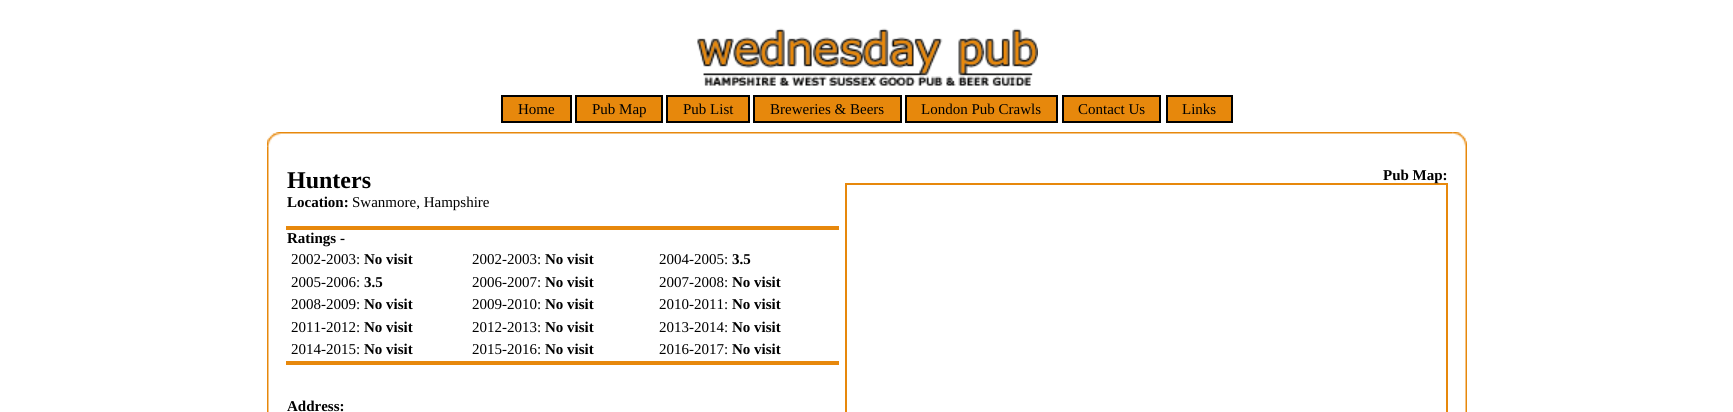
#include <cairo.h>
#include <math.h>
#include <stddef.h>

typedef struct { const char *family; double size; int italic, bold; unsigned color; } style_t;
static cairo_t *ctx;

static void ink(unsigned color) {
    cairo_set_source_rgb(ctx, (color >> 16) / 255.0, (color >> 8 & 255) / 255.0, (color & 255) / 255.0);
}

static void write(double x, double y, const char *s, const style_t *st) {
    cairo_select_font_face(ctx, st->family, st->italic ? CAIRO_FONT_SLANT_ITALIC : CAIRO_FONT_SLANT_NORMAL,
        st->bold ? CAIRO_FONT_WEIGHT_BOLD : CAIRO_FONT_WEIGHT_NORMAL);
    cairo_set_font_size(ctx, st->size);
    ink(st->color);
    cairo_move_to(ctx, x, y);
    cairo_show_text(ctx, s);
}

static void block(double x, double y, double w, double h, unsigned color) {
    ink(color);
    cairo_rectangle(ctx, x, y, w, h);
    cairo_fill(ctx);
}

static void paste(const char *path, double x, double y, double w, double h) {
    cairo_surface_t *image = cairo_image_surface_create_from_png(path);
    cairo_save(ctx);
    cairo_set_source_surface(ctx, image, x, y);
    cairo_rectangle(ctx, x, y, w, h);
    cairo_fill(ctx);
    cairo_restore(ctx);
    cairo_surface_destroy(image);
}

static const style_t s1 = {"Liberation Serif", 15, 0, 0, 0x000000};
static const style_t s2 = {"Liberation Serif", 24, 0, 1, 0x000000};
static const style_t s3 = {"Liberation Serif", 15, 0, 1, 0x000000};

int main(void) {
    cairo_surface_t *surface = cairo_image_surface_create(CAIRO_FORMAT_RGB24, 1733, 412);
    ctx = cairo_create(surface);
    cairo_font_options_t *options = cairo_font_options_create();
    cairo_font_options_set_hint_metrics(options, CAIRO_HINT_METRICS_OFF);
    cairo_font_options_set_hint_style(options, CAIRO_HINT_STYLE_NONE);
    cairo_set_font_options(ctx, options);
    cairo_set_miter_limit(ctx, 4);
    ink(0xffffff);
    cairo_paint(ctx);
    paste("pic1.png", 697, 28, 341, 58);
    ink(0xe7880c);
    cairo_rectangle(ctx, 502, 96, 69, 26);
    cairo_fill_preserve(ctx);
    ink(0x000000);
    cairo_stroke(ctx);
    write(518, 114, "Home", &s1);
    ink(0xe7880c);
    cairo_rectangle(ctx, 576, 96, 86, 26);
    cairo_fill_preserve(ctx);
    ink(0x000000);
    cairo_stroke(ctx);
    write(592, 114, "Pub Map", &s1);
    ink(0xe7880c);
    cairo_rectangle(ctx, 667, 96, 82, 26);
    cairo_fill_preserve(ctx);
    ink(0x000000);
    cairo_stroke(ctx);
    write(683, 114, "Pub List", &s1);
    ink(0xe7880c);
    cairo_rectangle(ctx, 754, 96, 147, 26);
    cairo_fill_preserve(ctx);
    ink(0x000000);
    cairo_stroke(ctx);
    write(770, 114, "Breweries & Beers", &s1);
    ink(0xe7880c);
    cairo_rectangle(ctx, 906, 96, 151, 26);
    cairo_fill_preserve(ctx);
    ink(0x000000);
    cairo_stroke(ctx);
    write(921, 114, "London Pub Crawls", &s1);
    ink(0xe7880c);
    cairo_rectangle(ctx, 1063, 96, 97, 26);
    cairo_fill_preserve(ctx);
    ink(0x000000);
    cairo_stroke(ctx);
    write(1078, 114, "Contact Us", &s1);
    ink(0xe7880c);
    cairo_rectangle(ctx, 1167, 96, 65, 26);
    cairo_fill_preserve(ctx);
    ink(0x000000);
    cairo_stroke(ctx);
    write(1182, 114, "Links", &s1);
    paste("pic2.png", 281, 132, 1171, 2);
    paste("pic3.png", 267, 147, 2, 265);
    paste("pic4.png", 1465, 146, 2, 266);
    paste("pic5.png", 267, 132, 14, 15);
    paste("pic6.png", 1452, 132, 15, 14);
    write(287, 188, "Hunters", &s2);
    write(287, 207, "Location:", &s3);
    write(352, 207, "Swanmore, Hampshire", &s1);
    block(286, 226, 553, 4, 0xe7880c);
    write(287, 243, "Ratings -", &s3);
    write(291, 264, "2002-2003:", &s1);
    write(364, 264, "No visit", &s3);
    write(472, 264, "2002-2003:", &s1);
    write(545, 264, "No visit", &s3);
    write(659, 264, "2004-2005:", &s1);
    write(732, 264, "3.5", &s3);
    write(291, 287, "2005-2006:", &s1);
    write(364, 287, "3.5", &s3);
    write(472, 287, "2006-2007:", &s1);
    write(545, 287, "No visit", &s3);
    write(659, 287, "2007-2008:", &s1);
    write(732, 287, "No visit", &s3);
    write(291, 309, "2008-2009:", &s1);
    write(364, 309, "No visit", &s3);
    write(472, 309, "2009-2010:", &s1);
    write(545, 309, "No visit", &s3);
    write(659, 309, "2010-2011:", &s1);
    write(732, 309, "No visit", &s3);
    write(291, 332, "2011-2012:", &s1);
    write(364, 332, "No visit", &s3);
    write(472, 332, "2012-2013:", &s1);
    write(545, 332, "No visit", &s3);
    write(659, 332, "2013-2014:", &s1);
    write(732, 332, "No visit", &s3);
    write(291, 354, "2014-2015:", &s1);
    write(364, 354, "No visit", &s3);
    write(472, 354, "2015-2016:", &s1);
    write(545, 354, "No visit", &s3);
    write(659, 354, "2016-2017:", &s1);
    write(732, 354, "No visit", &s3);
    block(286, 361, 553, 4, 0xe7880c);
    write(287, 411, "Address:", &s3);
    cairo_rectangle(ctx, 846, 184, 601, 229);
    ink(0xe7880c);
    cairo_stroke(ctx);
    write(1383, 180, "Pub Map:", &s3);
    cairo_surface_write_to_png(surface, "screenshot.png");
    cairo_font_options_destroy(options);
    cairo_destroy(ctx);
    cairo_surface_destroy(surface);
    return 0;
}
